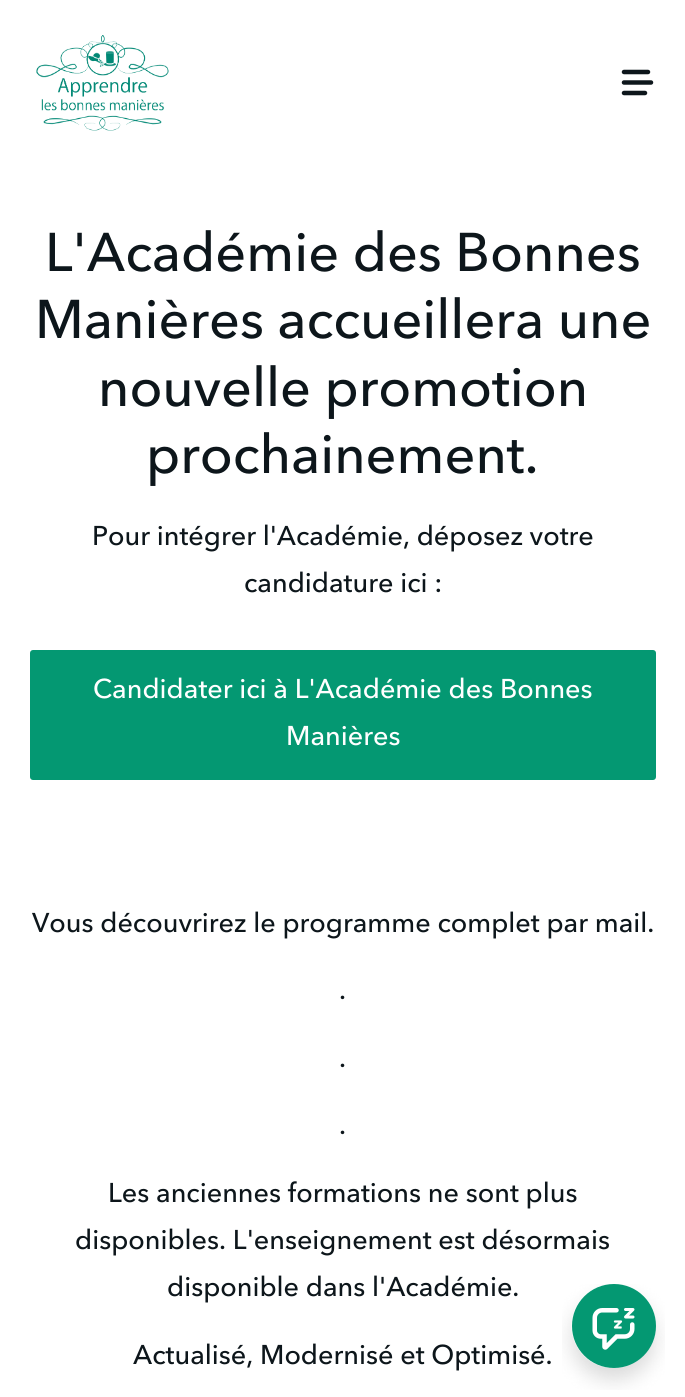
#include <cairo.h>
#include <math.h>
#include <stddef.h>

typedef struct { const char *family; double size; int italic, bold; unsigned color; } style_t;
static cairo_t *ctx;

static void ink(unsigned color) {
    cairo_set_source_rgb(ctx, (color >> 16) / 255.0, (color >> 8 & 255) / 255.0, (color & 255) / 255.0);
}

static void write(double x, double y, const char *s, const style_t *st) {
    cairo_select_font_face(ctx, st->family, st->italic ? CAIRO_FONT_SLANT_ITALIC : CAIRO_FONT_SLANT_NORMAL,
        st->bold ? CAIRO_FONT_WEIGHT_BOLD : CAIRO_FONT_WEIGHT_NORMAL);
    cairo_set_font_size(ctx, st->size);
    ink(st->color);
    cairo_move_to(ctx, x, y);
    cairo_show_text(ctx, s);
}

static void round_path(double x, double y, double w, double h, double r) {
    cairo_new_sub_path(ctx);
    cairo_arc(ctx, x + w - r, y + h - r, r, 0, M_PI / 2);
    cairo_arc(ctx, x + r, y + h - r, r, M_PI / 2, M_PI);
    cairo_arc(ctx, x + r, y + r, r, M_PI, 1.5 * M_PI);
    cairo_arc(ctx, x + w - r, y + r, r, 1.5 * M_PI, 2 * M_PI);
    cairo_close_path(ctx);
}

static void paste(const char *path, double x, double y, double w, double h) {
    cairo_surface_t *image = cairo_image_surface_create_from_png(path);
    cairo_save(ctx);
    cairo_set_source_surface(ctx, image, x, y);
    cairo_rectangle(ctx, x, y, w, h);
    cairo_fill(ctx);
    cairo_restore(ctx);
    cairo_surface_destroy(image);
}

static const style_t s1 = {"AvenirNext", 54, 0, 0, 0x0d161b};
static const style_t s2 = {"AvenirNext", 27, 0, 0, 0x0d161b};
static const style_t s3 = {"AvenirNext", 27, 0, 0, 0xffffff};

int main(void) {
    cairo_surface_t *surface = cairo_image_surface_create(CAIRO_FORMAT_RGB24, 685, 1397);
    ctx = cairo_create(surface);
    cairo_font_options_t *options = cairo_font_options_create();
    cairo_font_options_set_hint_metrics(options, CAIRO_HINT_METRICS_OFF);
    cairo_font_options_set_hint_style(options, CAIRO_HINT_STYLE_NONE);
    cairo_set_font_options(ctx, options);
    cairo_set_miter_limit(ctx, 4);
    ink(0xffffff);
    cairo_paint(ctx);
    paste("pic1.png", 36, 35, 133, 96);
    paste("pic2.png", 621, 69, 33, 27);
    write(45, 271, "L'Académie des Bonnes", &s1);
    write(35, 338, "Manières accueillera une", &s1);
    write(98, 406, "nouvelle promotion", &s1);
    write(146, 473, "prochainement.", &s1);
    write(92, 545, "Pour intégrer l'Académie, déposez votre", &s2);
    write(244, 592, "candidature ici :", &s2);
    ink(0x049872);
    round_path(30, 650, 626, 130, 3);
    cairo_fill(ctx);
    write(93, 698, "Candidater ici à L'Académie des Bonnes", &s3);
    write(286, 745, "Manières", &s3);
    write(32, 932, "Vous découvrirez le programme complet par mail.", &s2);
    write(339, 999, ".", &s2);
    write(339, 1067, ".", &s2);
    write(339, 1134, ".", &s2);
    write(108, 1202, "Les anciennes formations ne sont plus", &s2);
    write(75, 1249, "disponibles. L'enseignement est désormais", &s2);
    write(167, 1296, "disponible dans l'Académie.", &s2);
    write(133, 1364, "Actualisé, Modernisé et Optimisé.", &s2);
    paste("pic3.png", 562, 1284, 103, 106);
    ink(0x049872);
    cairo_arc(ctx, 614, 1326, 42, 0, 2 * M_PI);
    cairo_fill(ctx);
    paste("pic4.png", 592, 1308, 43, 42);
    cairo_surface_write_to_png(surface, "screenshot.png");
    cairo_font_options_destroy(options);
    cairo_destroy(ctx);
    cairo_surface_destroy(surface);
    return 0;
}
